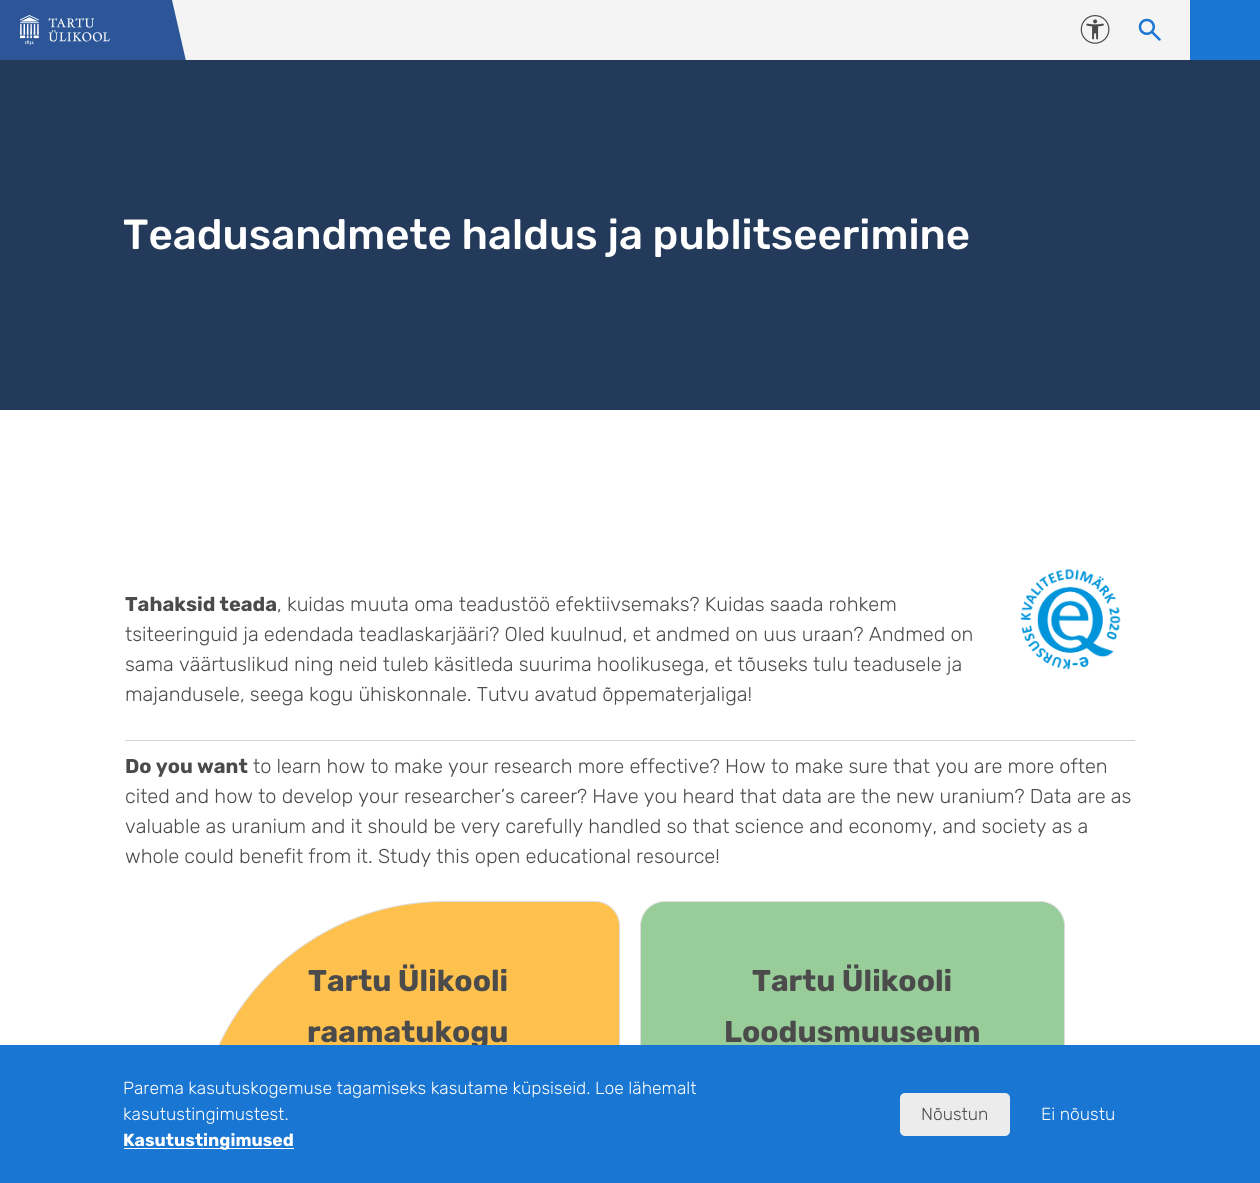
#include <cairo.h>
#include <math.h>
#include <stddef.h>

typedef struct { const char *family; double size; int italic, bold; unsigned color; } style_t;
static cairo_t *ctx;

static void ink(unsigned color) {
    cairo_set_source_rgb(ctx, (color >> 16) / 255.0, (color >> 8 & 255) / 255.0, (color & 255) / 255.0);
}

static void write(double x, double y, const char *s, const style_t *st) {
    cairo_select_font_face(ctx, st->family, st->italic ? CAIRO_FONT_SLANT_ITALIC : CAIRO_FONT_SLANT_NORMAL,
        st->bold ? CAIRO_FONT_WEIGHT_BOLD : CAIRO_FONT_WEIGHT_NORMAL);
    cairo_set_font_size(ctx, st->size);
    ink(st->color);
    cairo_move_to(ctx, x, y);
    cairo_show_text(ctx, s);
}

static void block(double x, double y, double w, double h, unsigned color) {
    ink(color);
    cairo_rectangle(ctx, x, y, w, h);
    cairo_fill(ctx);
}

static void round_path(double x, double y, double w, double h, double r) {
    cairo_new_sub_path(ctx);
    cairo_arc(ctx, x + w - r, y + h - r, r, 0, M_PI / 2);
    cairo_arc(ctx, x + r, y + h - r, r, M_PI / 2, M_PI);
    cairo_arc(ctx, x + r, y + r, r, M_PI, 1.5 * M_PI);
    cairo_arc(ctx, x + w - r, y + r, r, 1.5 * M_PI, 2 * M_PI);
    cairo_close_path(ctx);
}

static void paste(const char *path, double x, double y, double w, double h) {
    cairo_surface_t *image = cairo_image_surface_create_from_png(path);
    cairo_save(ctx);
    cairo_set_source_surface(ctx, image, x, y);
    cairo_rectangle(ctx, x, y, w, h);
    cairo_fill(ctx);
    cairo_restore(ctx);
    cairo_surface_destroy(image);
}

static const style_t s1 = {"Rubik Medium", 42.1, 0, 0, 0xffffff};
static const style_t s2 = {"Rubik", 20, 0, 1, 0x4b4b4b};
static const style_t s3 = {"Rubik Light", 20, 0, 0, 0x4b4b4b};
static const style_t s4 = {"Rubik", 30, 0, 1, 0x4b4b4b};
static const style_t s5 = {"Rubik Light", 17.5, 0, 0, 0xffffff};
static const style_t s6 = {"Rubik", 17.5, 0, 1, 0xffffff};
static const style_t s7 = {"Rubik Light", 17.5, 0, 0, 0x4b4b4b};

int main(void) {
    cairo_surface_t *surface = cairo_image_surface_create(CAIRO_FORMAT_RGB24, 1260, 1183);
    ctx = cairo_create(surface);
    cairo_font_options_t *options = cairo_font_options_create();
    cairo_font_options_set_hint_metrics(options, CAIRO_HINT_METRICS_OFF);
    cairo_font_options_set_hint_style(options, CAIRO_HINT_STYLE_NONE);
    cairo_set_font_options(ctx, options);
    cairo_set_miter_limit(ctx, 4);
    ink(0xffffff);
    cairo_paint(ctx);
    block(172, 0, 1018, 60, 0xf4f4f4);
    cairo_save(ctx);
    cairo_rectangle(ctx, 0, 0, 186, 60);
    cairo_clip(ctx);
    ink(0x2c5697);
    cairo_new_path(ctx);
    cairo_move_to(ctx, 0, 61);
    cairo_line_to(ctx, 0, 0);
    cairo_line_to(ctx, 172, 0);
    cairo_line_to(ctx, 186, 61);
    cairo_close_path(ctx);
    cairo_fill(ctx);
    cairo_restore(ctx);
    paste("pic1.png", 20, 15, 90, 30);
    paste("pic2.png", 1080, 15, 30, 29);
    paste("pic3.png", 1138, 18, 23, 23);
    block(1190, 0, 70, 60, 0x1976d2);
    block(0, 60, 1260, 350, 0x233a5b);
    write(123, 249, "Teadusandmete haldus ja publitseerimine", &s1);
    write(125, 611, "Tahaksid teada", &s2);
    write(277, 611, ", kuidas muuta oma teadustöö efektiivsemaks? Kuidas saada rohkem", &s3);
    write(125, 641, "tsiteeringuid ja edendada teadlaskarjääri? Oled kuulnud, et andmed on uus uraan? Andmed on", &s3);
    write(125, 671, "sama väärtuslikud ning neid tuleb käsitleda suurima hoolikusega, et tõuseks tulu teadusele ja", &s3);
    write(125, 701, "majandusele, seega kogu ühiskonnale. Tutvu avatud õppematerjaliga!", &s3);
    paste("pic4.png", 1020, 569, 101, 101);
    block(125, 740, 1010, 1, 0xd2d2d2);
    write(125, 773, "Do you want", &s2);
    write(253, 773, "to learn how to make your research more effective? How to make sure that you are more often", &s3);
    write(125, 803, "cited and how to develop your researcher’s career? Have you heard that data are the new uranium? Data are as", &s3);
    write(125, 833, "valuable as uranium and it should be very carefully handled so that science and economy, and society as a", &s3);
    write(125, 863, "whole could benefit from it. Study this open educational resource!", &s3);
    ink(0xffc14d);
    cairo_new_path(ctx);
    cairo_move_to(ctx, 445, 901.5);
    cairo_line_to(ctx, 595, 901.5);
    cairo_curve_to(ctx, 608.5, 901.5, 619.5, 912.5, 619.5, 926);
    cairo_line_to(ctx, 619.5, 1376);
    cairo_curve_to(ctx, 619.5, 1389.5, 608.5, 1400.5, 595, 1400.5);
    cairo_line_to(ctx, 220, 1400.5);
    cairo_curve_to(ctx, 206.5, 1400.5, 195.5, 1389.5, 195.5, 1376);
    cairo_line_to(ctx, 195.5, 1151);
    cairo_curve_to(ctx, 195.5, 1013, 307, 901.5, 445, 901.5);
    cairo_close_path(ctx);
    cairo_fill_preserve(ctx);
    ink(0xdddddd);
    cairo_set_line_width(ctx, 1);
    cairo_stroke(ctx);
    write(308, 991, "Tartu Ülikooli", &s4);
    write(307, 1042, "raamatukogu", &s4);
    ink(0x98cc99);
    cairo_new_path(ctx);
    cairo_move_to(ctx, 665, 901.5);
    cairo_line_to(ctx, 1040, 901.5);
    cairo_curve_to(ctx, 1053.5, 901.5, 1064.5, 912.5, 1064.5, 926);
    cairo_line_to(ctx, 1064.5, 1151);
    cairo_curve_to(ctx, 1064.5, 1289, 953, 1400.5, 815, 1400.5);
    cairo_line_to(ctx, 665, 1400.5);
    cairo_curve_to(ctx, 651.5, 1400.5, 640.5, 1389.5, 640.5, 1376);
    cairo_line_to(ctx, 640.5, 926);
    cairo_curve_to(ctx, 640.5, 912.5, 651.5, 901.5, 665, 901.5);
    cairo_close_path(ctx);
    cairo_fill_preserve(ctx);
    ink(0xdddddd);
    cairo_stroke(ctx);
    write(752, 991, "Tartu Ülikooli", &s4);
    write(724, 1042, "Loodusmuuseum", &s4);
    block(0, 1045, 1260, 138, 0x1976d2);
    write(123, 1094, "Parema kasutuskogemuse tagamiseks kasutame küpsiseid. Loe lähemalt", &s5);
    write(123, 1120, "kasutustingimustest.", &s5);
    block(124, 1148, 170, 1, 0xffffff);
    write(123, 1146, "Kasutustingimused", &s6);
    ink(0xececec);
    round_path(900, 1093, 110, 43, 5);
    cairo_fill(ctx);
    write(921, 1120, "Nõustun", &s7);
    write(1041, 1120, "Ei nõustu", &s5);
    cairo_surface_write_to_png(surface, "screenshot.png");
    cairo_font_options_destroy(options);
    cairo_destroy(ctx);
    cairo_surface_destroy(surface);
    return 0;
}
